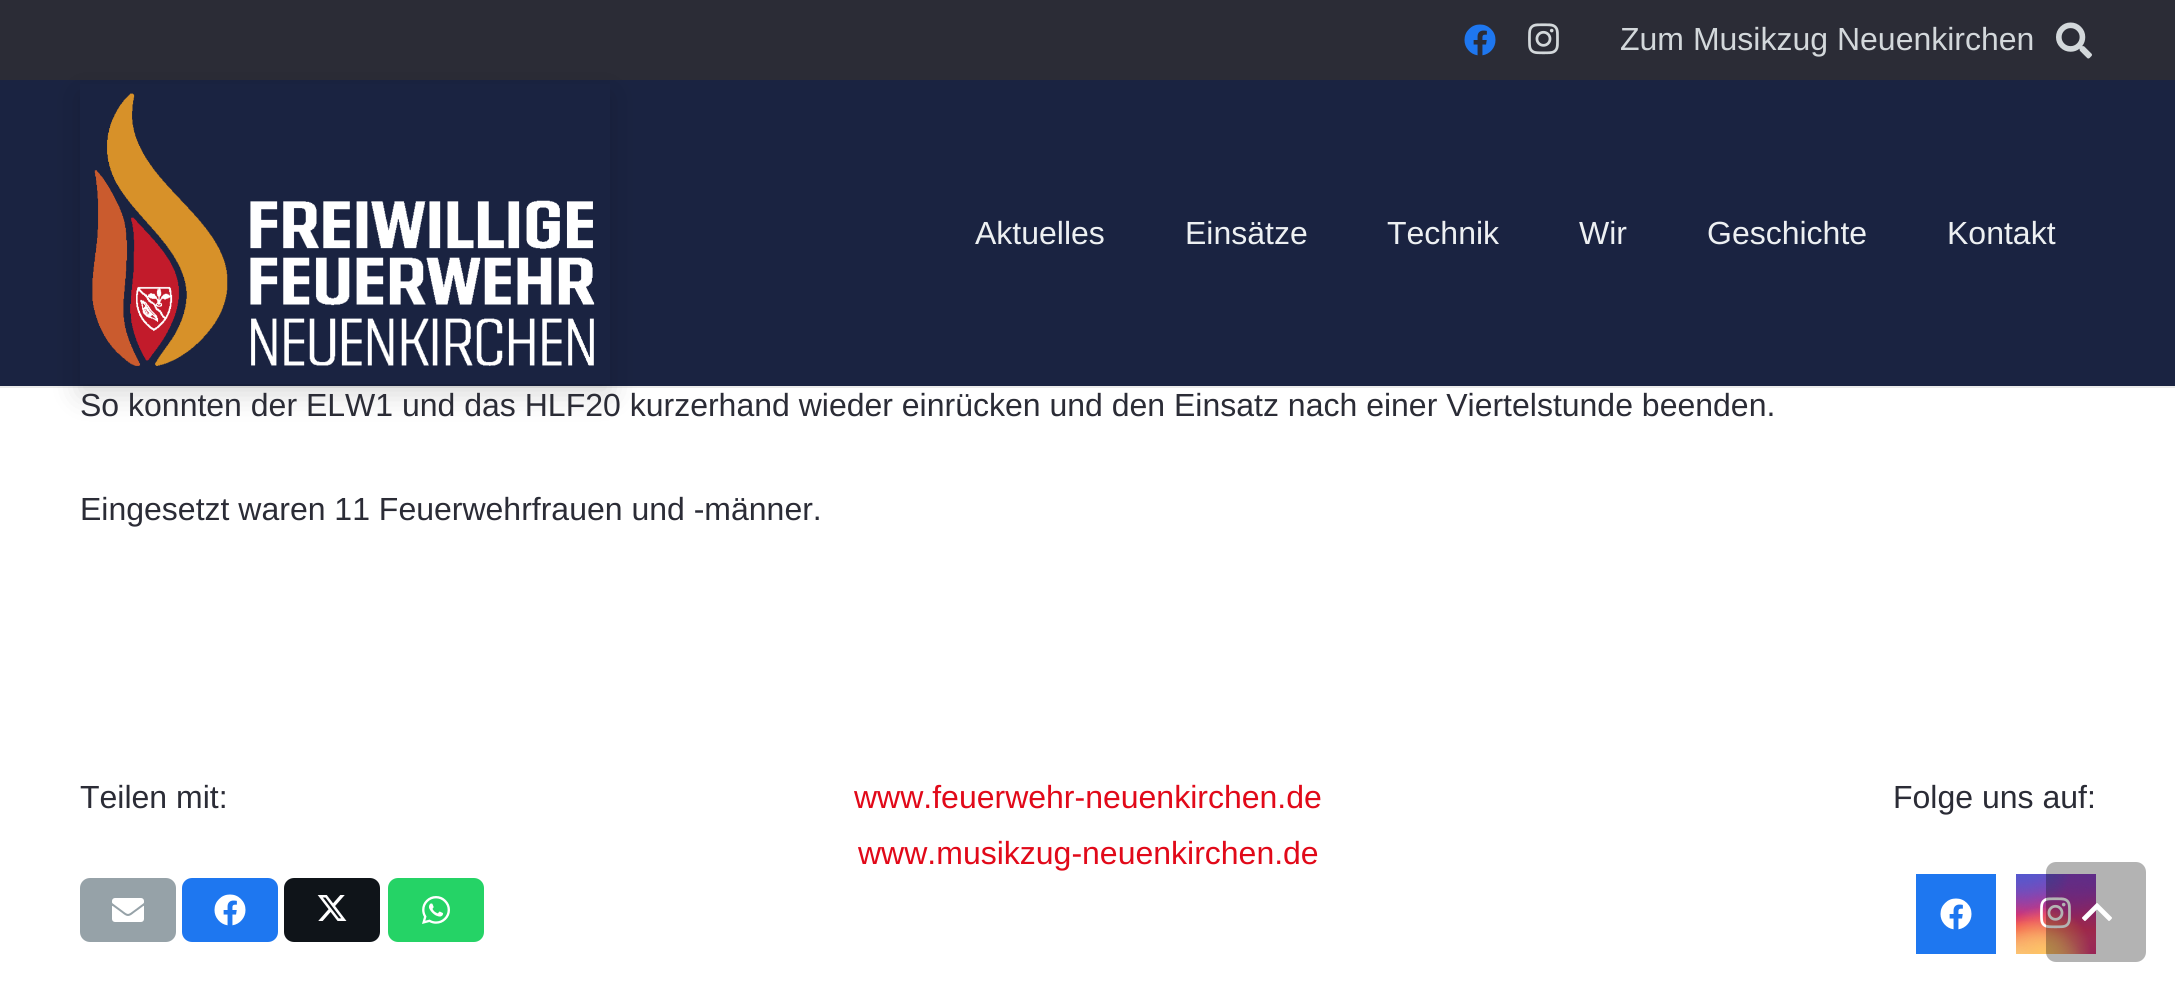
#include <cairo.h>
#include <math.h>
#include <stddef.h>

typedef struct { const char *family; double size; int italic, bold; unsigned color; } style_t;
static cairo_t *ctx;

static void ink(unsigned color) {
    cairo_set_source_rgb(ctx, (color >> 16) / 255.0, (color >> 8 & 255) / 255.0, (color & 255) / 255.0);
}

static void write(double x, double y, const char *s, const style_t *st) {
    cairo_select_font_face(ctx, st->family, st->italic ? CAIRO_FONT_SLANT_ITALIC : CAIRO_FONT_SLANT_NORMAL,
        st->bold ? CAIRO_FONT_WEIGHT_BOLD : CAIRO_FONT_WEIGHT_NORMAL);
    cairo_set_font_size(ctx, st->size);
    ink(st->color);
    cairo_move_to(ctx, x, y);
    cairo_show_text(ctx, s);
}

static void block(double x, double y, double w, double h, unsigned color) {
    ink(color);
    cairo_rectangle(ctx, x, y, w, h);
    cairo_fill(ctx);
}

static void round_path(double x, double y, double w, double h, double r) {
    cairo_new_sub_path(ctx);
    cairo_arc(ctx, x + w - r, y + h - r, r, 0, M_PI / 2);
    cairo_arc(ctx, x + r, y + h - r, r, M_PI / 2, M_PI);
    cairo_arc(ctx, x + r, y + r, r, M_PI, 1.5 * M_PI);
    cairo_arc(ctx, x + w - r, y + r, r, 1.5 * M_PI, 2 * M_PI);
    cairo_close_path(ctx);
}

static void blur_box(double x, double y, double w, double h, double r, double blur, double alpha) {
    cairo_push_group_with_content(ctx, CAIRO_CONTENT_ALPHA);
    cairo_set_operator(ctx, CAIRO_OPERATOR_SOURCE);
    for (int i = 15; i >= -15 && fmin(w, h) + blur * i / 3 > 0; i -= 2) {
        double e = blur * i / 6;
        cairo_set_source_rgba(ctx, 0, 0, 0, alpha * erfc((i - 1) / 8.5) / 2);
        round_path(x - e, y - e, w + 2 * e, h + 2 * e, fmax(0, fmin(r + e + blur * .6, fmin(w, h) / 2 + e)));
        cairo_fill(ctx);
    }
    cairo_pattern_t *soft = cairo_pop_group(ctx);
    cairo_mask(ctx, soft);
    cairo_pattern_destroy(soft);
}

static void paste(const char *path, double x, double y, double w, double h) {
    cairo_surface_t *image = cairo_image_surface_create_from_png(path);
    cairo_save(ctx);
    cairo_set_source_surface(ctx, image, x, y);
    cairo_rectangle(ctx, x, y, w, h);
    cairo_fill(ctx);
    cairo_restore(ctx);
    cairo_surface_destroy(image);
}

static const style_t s1 = {"Liberation Sans", 32, 0, 0, 0xd3d8db};
static const style_t s2 = {"Liberation Sans", 32, 0, 0, 0xedf0f2};
static const style_t s3 = {"Liberation Sans", 32, 0, 0, 0x2b2c36};
static const style_t s4 = {"Liberation Sans", 32, 0, 0, 0xe10919};

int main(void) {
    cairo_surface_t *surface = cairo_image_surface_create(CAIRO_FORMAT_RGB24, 2175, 991);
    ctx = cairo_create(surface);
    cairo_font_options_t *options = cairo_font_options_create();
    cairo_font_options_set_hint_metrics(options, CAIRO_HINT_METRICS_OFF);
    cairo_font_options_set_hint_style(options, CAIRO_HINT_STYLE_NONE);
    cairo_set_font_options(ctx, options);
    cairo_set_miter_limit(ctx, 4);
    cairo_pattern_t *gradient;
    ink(0xffffff);
    cairo_paint(ctx);
    block(0, 0, 2175, 80, 0x2b2c36);
    paste("pic1.png", 1464, 24, 32, 32);
    paste("pic2.png", 1528, 23, 31, 32);
    write(1620, 50, "Zum Musikzug Neuenkirchen", &s1);
    paste("pic3.png", 2056, 22, 36, 37);
    block(0, 386, 2175, 2, 0xebebeb);
    block(0, 80, 2175, 306, 0x1a2341);
    cairo_save(ctx);
    cairo_set_fill_rule(ctx, CAIRO_FILL_RULE_EVEN_ODD);
    cairo_new_path(ctx);
    cairo_move_to(ctx, 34, 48);
    cairo_line_to(ctx, 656, 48);
    cairo_line_to(ctx, 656, 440);
    cairo_line_to(ctx, 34, 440);
    cairo_close_path(ctx);
    cairo_move_to(ctx, 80, 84);
    cairo_line_to(ctx, 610, 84);
    cairo_line_to(ctx, 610, 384);
    cairo_line_to(ctx, 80, 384);
    cairo_close_path(ctx);
    cairo_clip(ctx);
    ink(0x000000);
    blur_box(80, 94, 530, 300, 0, 15, 0.15);
    cairo_restore(ctx);
    paste("pic4.png", 92, 93, 503, 273);
    write(975, 244, "Aktuelles", &s2);
    write(1185, 244, "Einsätze", &s2);
    write(1387, 244, "Technik", &s2);
    write(1579, 244, "Wir", &s2);
    write(1707, 244, "Geschichte", &s2);
    write(1947, 244, "Kontakt", &s2);
    write(80, 416, "So konnten der ELW1 und das HLF20 kurzerhand wieder einrücken und den Einsatz nach einer Viertelstunde beenden.", &s3);
    write(80, 520, "Eingesetzt waren 11 Feuerwehrfrauen und -männer.", &s3);
    write(80, 808, "Teilen mit:", &s3);
    ink(0x96a2a8);
    round_path(80, 878, 96, 64, 10);
    cairo_fill(ctx);
    paste("pic5.png", 112, 898, 32, 24);
    ink(0x1e77f0);
    round_path(182, 878, 96, 64, 10);
    cairo_fill(ctx);
    paste("pic6.png", 214, 894, 32, 32);
    ink(0x0f1419);
    round_path(284, 878, 96, 64, 10);
    cairo_fill(ctx);
    paste("pic7.png", 317, 895, 30, 26);
    ink(0x25d366);
    round_path(388, 878, 96, 64, 10);
    cairo_fill(ctx);
    paste("pic8.png", 422, 896, 28, 28);
    write(854, 808, "www.feuerwehr-neuenkirchen.de", &s4);
    write(858, 864, "www.musikzug-neuenkirchen.de", &s4);
    write(1893, 808, "Folge uns auf:", &s3);
    block(1916, 874, 80, 80, 0x1e77f0);
    paste("pic6.png", 1940, 898, 32, 32);
    gradient = cairo_pattern_create_linear(2056, 874, 2056, 954);
    cairo_pattern_add_color_stop_rgba(gradient, 0, 0.396, 0.349, 0.792, 1);
    cairo_pattern_add_color_stop_rgba(gradient, 0.3, 0.737, 0.192, 0.561, 1);
    cairo_pattern_add_color_stop_rgba(gradient, 0.5, 0.894, 0.18, 0.4, 1);
    cairo_pattern_add_color_stop_rgba(gradient, 0.7, 0.98, 0.325, 0.196, 1);
    cairo_pattern_add_color_stop_rgba(gradient, 1, 1, 0.863, 0.502, 1);
    cairo_set_source(ctx, gradient);
    cairo_pattern_destroy(gradient);
    cairo_rectangle(ctx, 2016, 874, 80, 80);
    cairo_fill(ctx);
    gradient = cairo_pattern_create_radial(2096, 954, 0, 2096, 954, 113);
    cairo_pattern_add_color_stop_rgba(gradient, 0, 0.851, 0.192, 0.478, 1);
    cairo_pattern_add_color_stop_rgba(gradient, 1, 0.851, 0.192, 0.478, 0);
    cairo_set_source(ctx, gradient);
    cairo_pattern_destroy(gradient);
    cairo_rectangle(ctx, 2016, 874, 80, 80);
    cairo_fill(ctx);
    gradient = cairo_pattern_create_radial(0, 0, 0, 0, 0, 1);
    cairo_pattern_set_matrix(gradient, &(cairo_matrix_t){1.0 / 68, 0, 0, 1.0 / 136, -1.0 * 2064 / 68, -1.0 * 858 / 136});
    cairo_pattern_add_color_stop_rgba(gradient, 0, 0.537, 0.239, 0.761, 1);
    cairo_pattern_add_color_stop_rgba(gradient, 0.5, 0.537, 0.239, 0.761, 0);
    cairo_set_source(ctx, gradient);
    cairo_pattern_destroy(gradient);
    cairo_rectangle(ctx, 2034, 874, 60, 50);
    cairo_fill(ctx);
    gradient = cairo_pattern_create_radial(2096, 874, 0, 2096, 874, 113);
    cairo_pattern_add_color_stop_rgba(gradient, 0, 0.537, 0.239, 0.761, 1);
    cairo_pattern_add_color_stop_rgba(gradient, 0.5, 0.537, 0.239, 0.761, 0);
    cairo_set_source(ctx, gradient);
    cairo_pattern_destroy(gradient);
    cairo_rectangle(ctx, 2046, 874, 50, 55);
    cairo_fill(ctx);
    gradient = cairo_pattern_create_radial(0, 0, 0, 0, 0, 1);
    cairo_pattern_set_matrix(gradient, &(cairo_matrix_t){1.0 / 91, 0, 0, 1.0 / 170, -1.0 * 2032 / 91, -1.0 * 834 / 170});
    cairo_pattern_add_color_stop_rgba(gradient, 0, 0.322, 0.345, 0.812, 1);
    cairo_pattern_add_color_stop_rgba(gradient, 0.5, 0.322, 0.345, 0.812, 0);
    cairo_set_source(ctx, gradient);
    cairo_pattern_destroy(gradient);
    cairo_rectangle(ctx, 2016, 874, 54, 43);
    cairo_fill(ctx);
    gradient = cairo_pattern_create_radial(0, 0, 0, 0, 0, 1);
    cairo_pattern_set_matrix(gradient, &(cairo_matrix_t){1.0 / 113, 0, 0, 1.0 / 141, -1.0 * 2016 / 113, -1.0 * 854 / 141});
    cairo_pattern_add_color_stop_rgba(gradient, 0, 0.322, 0.345, 0.812, 1);
    cairo_pattern_add_color_stop_rgba(gradient, 0.5, 0.322, 0.345, 0.812, 0);
    cairo_set_source(ctx, gradient);
    cairo_pattern_destroy(gradient);
    cairo_rectangle(ctx, 2016, 874, 51, 49);
    cairo_fill(ctx);
    gradient = cairo_pattern_create_radial(2024, 986, 0, 2024, 986, 133);
    cairo_pattern_add_color_stop_rgba(gradient, 0, 0.996, 0.855, 0.494, 1);
    cairo_pattern_add_color_stop_rgba(gradient, 0.5, 0.996, 0.855, 0.494, 0);
    cairo_set_source(ctx, gradient);
    cairo_pattern_destroy(gradient);
    cairo_rectangle(ctx, 2016, 921, 64, 33);
    cairo_fill(ctx);
    gradient = cairo_pattern_create_radial(2044, 954, 0, 2044, 954, 95);
    cairo_pattern_add_color_stop_rgba(gradient, 0, 0.996, 0.773, 0.392, 1);
    cairo_pattern_add_color_stop_rgba(gradient, 0.5, 0.996, 0.773, 0.392, 0);
    cairo_set_source(ctx, gradient);
    cairo_pattern_destroy(gradient);
    cairo_rectangle(ctx, 2016, 908, 74, 46);
    cairo_fill(ctx);
    paste("pic9.png", 2040, 897, 31, 32);
    cairo_set_source_rgba(ctx, 0, 0, 0, 0.3);
    round_path(2046, 862, 100, 100, 10);
    cairo_fill(ctx);
    paste("pic10.png", 2082, 903, 30, 18);
    cairo_surface_write_to_png(surface, "screenshot.png");
    cairo_font_options_destroy(options);
    cairo_destroy(ctx);
    cairo_surface_destroy(surface);
    return 0;
}
